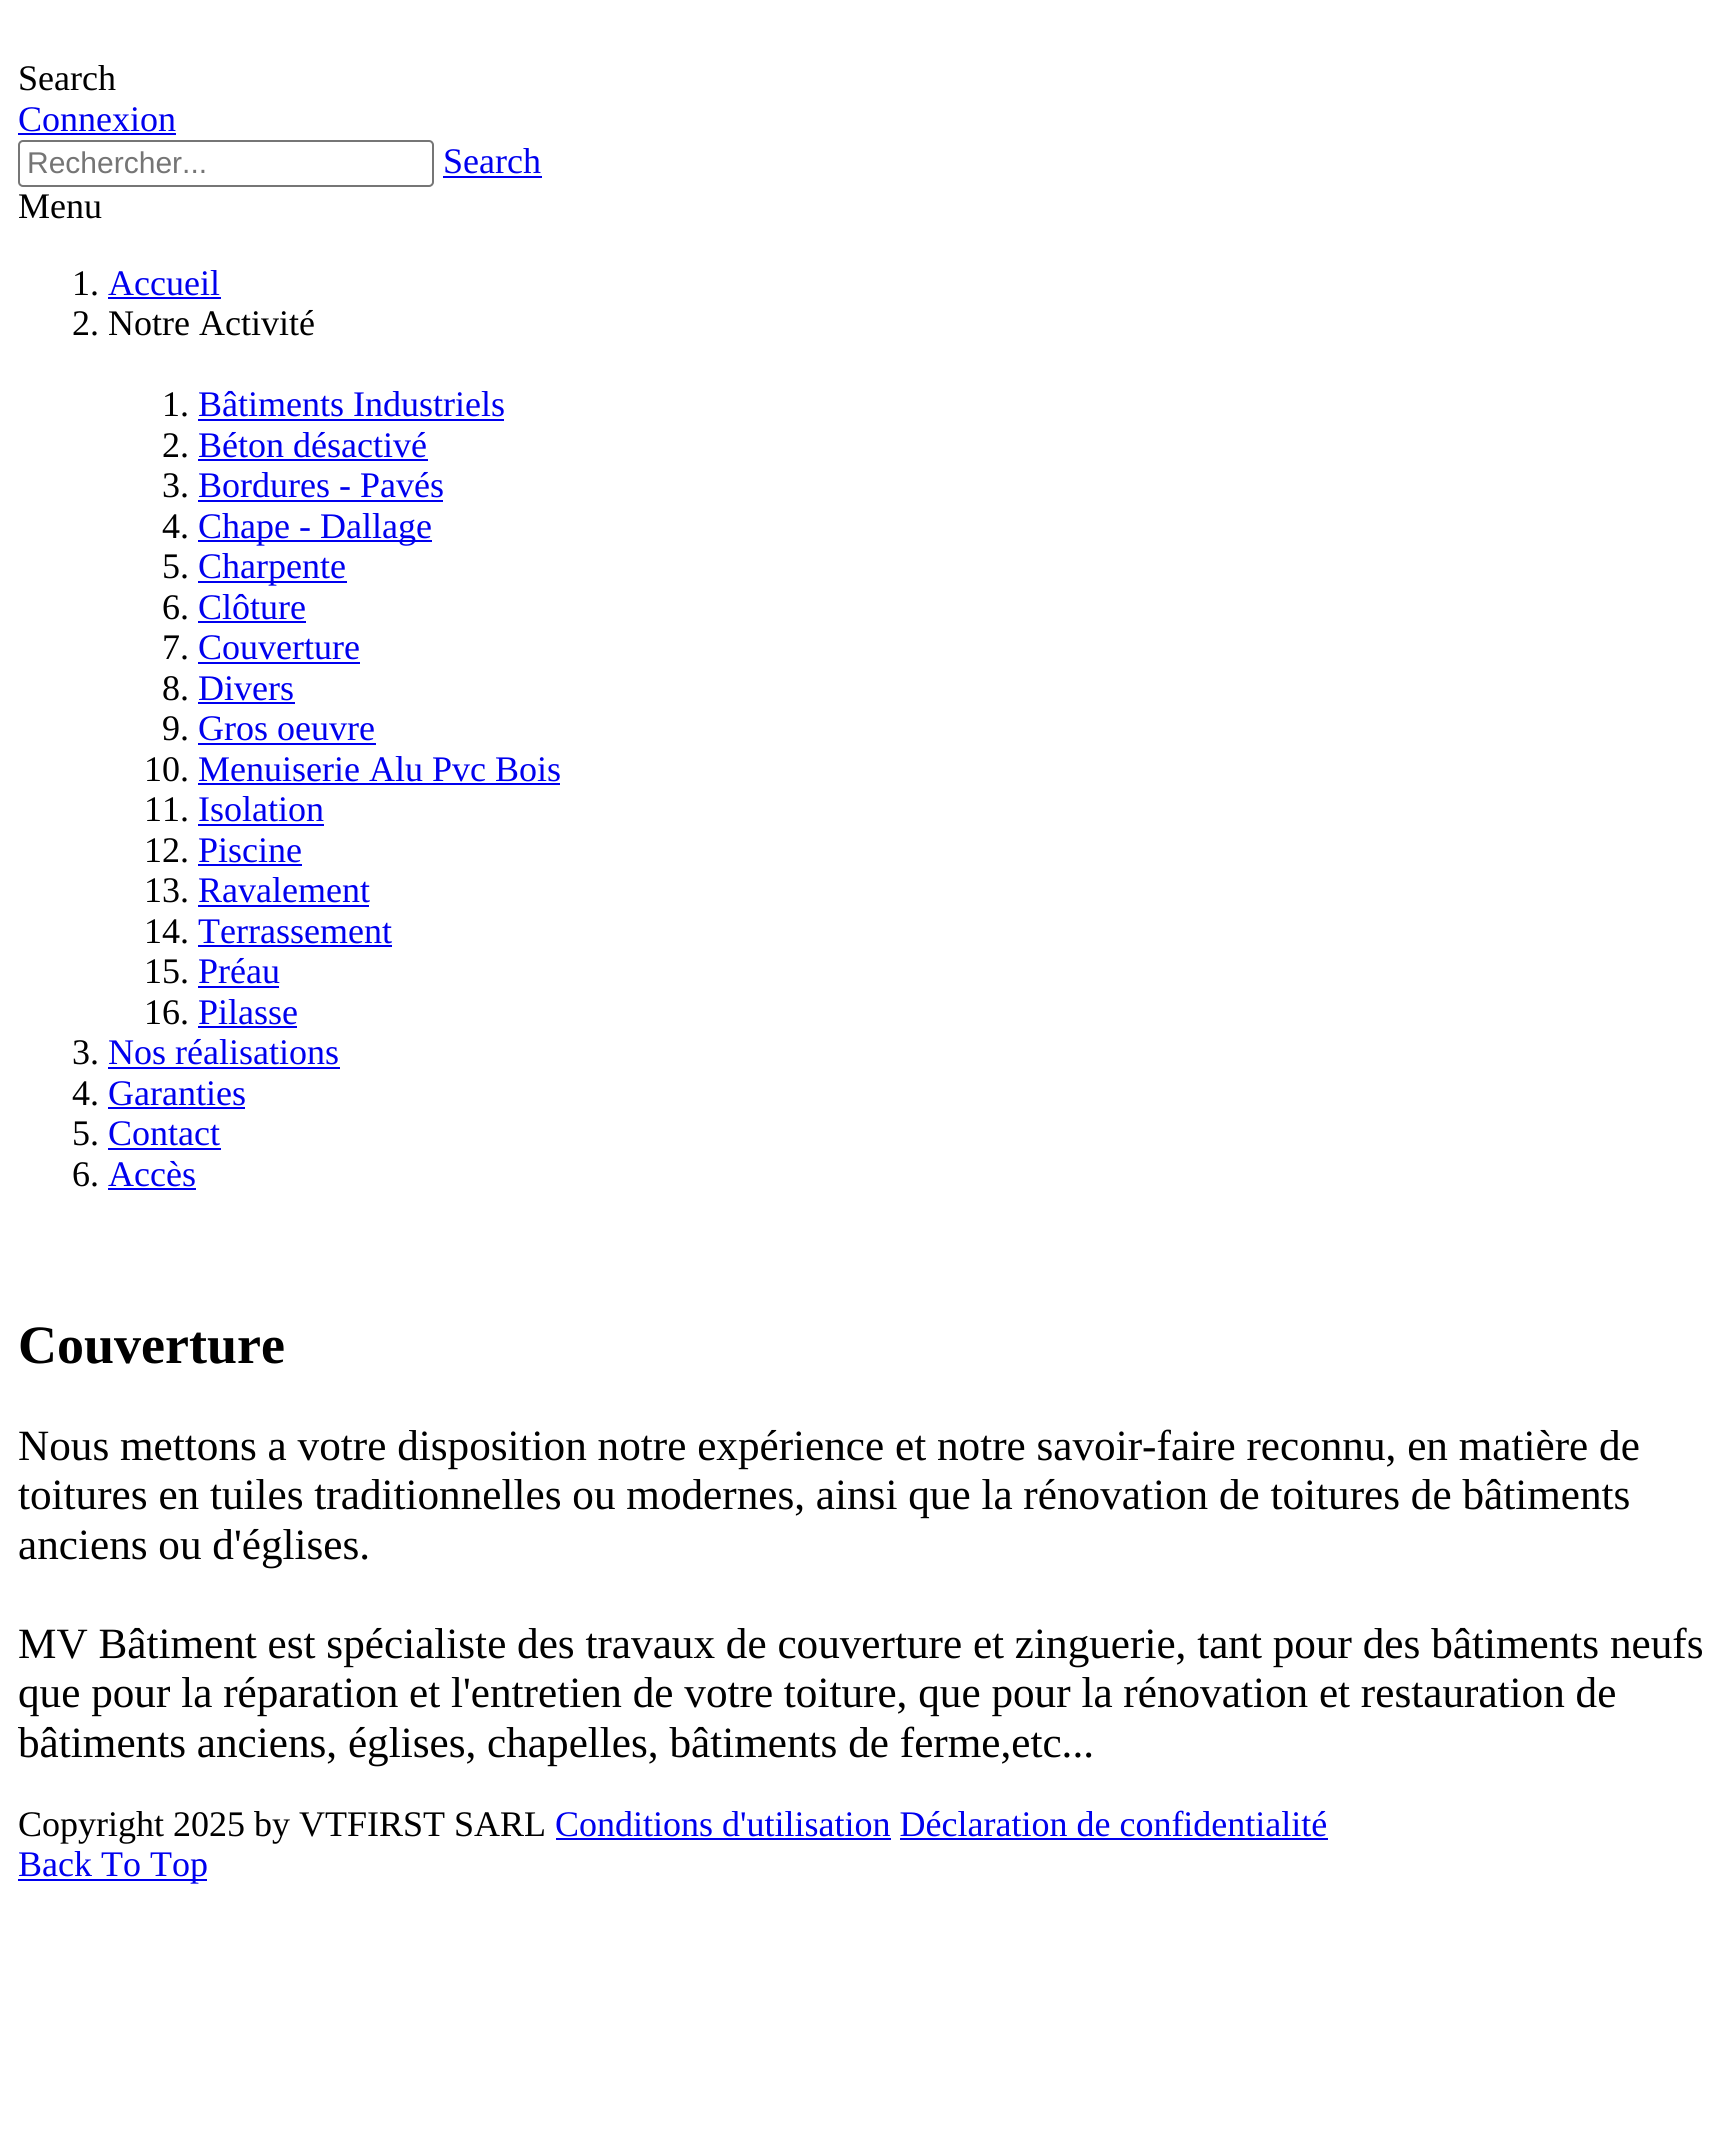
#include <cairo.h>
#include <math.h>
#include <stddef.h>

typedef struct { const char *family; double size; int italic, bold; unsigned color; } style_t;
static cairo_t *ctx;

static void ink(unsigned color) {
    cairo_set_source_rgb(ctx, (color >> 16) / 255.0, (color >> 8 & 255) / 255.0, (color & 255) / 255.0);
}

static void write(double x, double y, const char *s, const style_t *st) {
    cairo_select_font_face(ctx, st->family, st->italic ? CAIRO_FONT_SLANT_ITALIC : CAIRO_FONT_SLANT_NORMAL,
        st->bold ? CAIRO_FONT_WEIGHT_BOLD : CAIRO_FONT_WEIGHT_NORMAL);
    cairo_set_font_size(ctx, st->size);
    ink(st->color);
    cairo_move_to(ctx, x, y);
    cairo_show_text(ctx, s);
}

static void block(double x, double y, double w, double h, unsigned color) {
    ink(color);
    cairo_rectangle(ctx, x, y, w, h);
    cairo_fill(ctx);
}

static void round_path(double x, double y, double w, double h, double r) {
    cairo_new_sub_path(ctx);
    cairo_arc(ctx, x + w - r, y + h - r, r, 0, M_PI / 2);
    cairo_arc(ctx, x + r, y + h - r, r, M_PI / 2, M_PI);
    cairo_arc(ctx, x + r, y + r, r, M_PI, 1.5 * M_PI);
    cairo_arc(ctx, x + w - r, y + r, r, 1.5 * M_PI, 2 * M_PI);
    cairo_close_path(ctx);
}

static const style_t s1 = {"Liberation Serif", 36, 0, 0, 0x000000};
static const style_t s2 = {"Liberation Serif", 36, 0, 0, 0x0000ee};
static const style_t s3 = {"Liberation Sans", 30, 0, 0, 0x757575};
static const style_t s4 = {"Liberation Serif", 54, 0, 1, 0x000000};
static const style_t s5 = {"Liberation Serif", 43.2, 0, 0, 0x000000};

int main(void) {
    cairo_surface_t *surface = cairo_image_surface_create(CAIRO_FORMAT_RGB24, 1727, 2130);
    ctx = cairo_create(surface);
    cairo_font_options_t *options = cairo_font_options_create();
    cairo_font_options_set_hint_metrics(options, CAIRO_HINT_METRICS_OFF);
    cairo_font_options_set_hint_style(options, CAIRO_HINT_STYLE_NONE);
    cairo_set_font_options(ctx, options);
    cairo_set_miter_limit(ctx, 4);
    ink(0xffffff);
    cairo_paint(ctx);
    write(18, 90, "Search", &s1);
    write(18, 131, "Connexion", &s2);
    block(18, 133, 158, 2, 0x0000ee);
    round_path(19, 141, 414, 45, 4);
    ink(0x767676);
    cairo_stroke(ctx);
    write(27, 173, "Rechercher...", &s3);
    write(443, 173, "Search", &s2);
    block(443, 176, 99, 2, 0x0000ee);
    write(18, 218, "Menu", &s1);
    write(72, 295, "1.", &s1);
    write(108, 295, "Accueil", &s2);
    block(108, 297, 113, 2, 0x0000ee);
    write(72, 335, "2. Notre Activité", &s1);
    write(162, 416, "1.", &s1);
    write(198, 416, "Bâtiments Industriels", &s2);
    block(198, 419, 306, 2, 0x0000ee);
    write(162, 457, "2.", &s1);
    write(198, 457, "Béton désactivé", &s2);
    block(198, 459, 230, 2, 0x0000ee);
    write(162, 497, "3.", &s1);
    write(198, 497, "Bordures - Pavés", &s2);
    block(198, 500, 245, 2, 0x0000ee);
    write(162, 538, "4.", &s1);
    block(198, 540, 234, 2, 0x0000ee);
    write(198, 538, "Chape - Dallage", &s2);
    write(162, 578, "5.", &s1);
    block(198, 581, 149, 2, 0x0000ee);
    write(198, 578, "Charpente", &s2);
    write(162, 619, "6.", &s1);
    write(198, 619, "Clôture", &s2);
    block(198, 621, 108, 2, 0x0000ee);
    write(162, 659, "7.", &s1);
    write(198, 659, "Couverture", &s2);
    block(198, 662, 162, 2, 0x0000ee);
    write(162, 700, "8.", &s1);
    write(198, 700, "Divers", &s2);
    block(198, 702, 97, 2, 0x0000ee);
    write(162, 740, "9.", &s1);
    write(198, 740, "Gros oeuvre", &s2);
    block(198, 743, 178, 2, 0x0000ee);
    write(144, 781, "10.", &s1);
    write(198, 781, "Menuiserie Alu Pvc Bois", &s2);
    block(198, 783, 362, 2, 0x0000ee);
    write(144, 821, "11.", &s1);
    write(198, 821, "Isolation", &s2);
    block(198, 824, 126, 2, 0x0000ee);
    write(144, 862, "12.", &s1);
    write(198, 862, "Piscine", &s2);
    block(198, 864, 104, 2, 0x0000ee);
    write(144, 902, "13.", &s1);
    write(198, 902, "Ravalement", &s2);
    block(198, 905, 171, 2, 0x0000ee);
    write(144, 943, "14.", &s1);
    write(198, 943, "Terrassement", &s2);
    block(198, 945, 194, 2, 0x0000ee);
    write(144, 983, "15.", &s1);
    write(198, 983, "Préau", &s2);
    block(198, 986, 81, 2, 0x0000ee);
    write(144, 1024, "16.", &s1);
    write(198, 1024, "Pilasse", &s2);
    block(198, 1026, 99, 2, 0x0000ee);
    write(72, 1064, "3.", &s1);
    write(108, 1064, "Nos réalisations", &s2);
    block(108, 1067, 232, 2, 0x0000ee);
    write(72, 1105, "4.", &s1);
    write(108, 1105, "Garanties", &s2);
    block(108, 1107, 137, 2, 0x0000ee);
    write(72, 1145, "5.", &s1);
    write(108, 1145, "Contact", &s2);
    block(108, 1148, 113, 2, 0x0000ee);
    write(72, 1186, "6.", &s1);
    write(108, 1186, "Accès", &s2);
    block(108, 1188, 88, 2, 0x0000ee);
    write(18, 1363, "Couverture", &s4);
    write(18, 1460, "Nous mettons a votre disposition notre expérience et notre savoir-faire reconnu, en matière de", &s5);
    write(18, 1509, "toitures en tuiles traditionnelles ou modernes, ainsi que la rénovation de toitures de bâtiments", &s5);
    write(18, 1559, "anciens ou d'églises.", &s5);
    write(18, 1658, "MV Bâtiment est spécialiste des travaux de couverture et zinguerie, tant pour des bâtiments neufs", &s5);
    write(18, 1707, "que pour la réparation et l'entretien de votre toiture, que pour la rénovation et restauration de", &s5);
    write(18, 1757, "bâtiments anciens, églises, chapelles, bâtiments de ferme,etc...", &s5);
    write(18, 1836, "Copyright 2025 by VTFIRST SARL", &s1);
    write(555, 1836, "Conditions d'utilisation Déclaration de confidentialité", &s2);
    block(556, 1838, 335, 2, 0x0000ee);
    block(900, 1838, 428, 2, 0x0000ee);
    block(18, 1879, 189, 2, 0x0000ee);
    write(18, 1876, "Back To Top", &s2);
    cairo_surface_write_to_png(surface, "screenshot.png");
    cairo_font_options_destroy(options);
    cairo_destroy(ctx);
    cairo_surface_destroy(surface);
    return 0;
}
